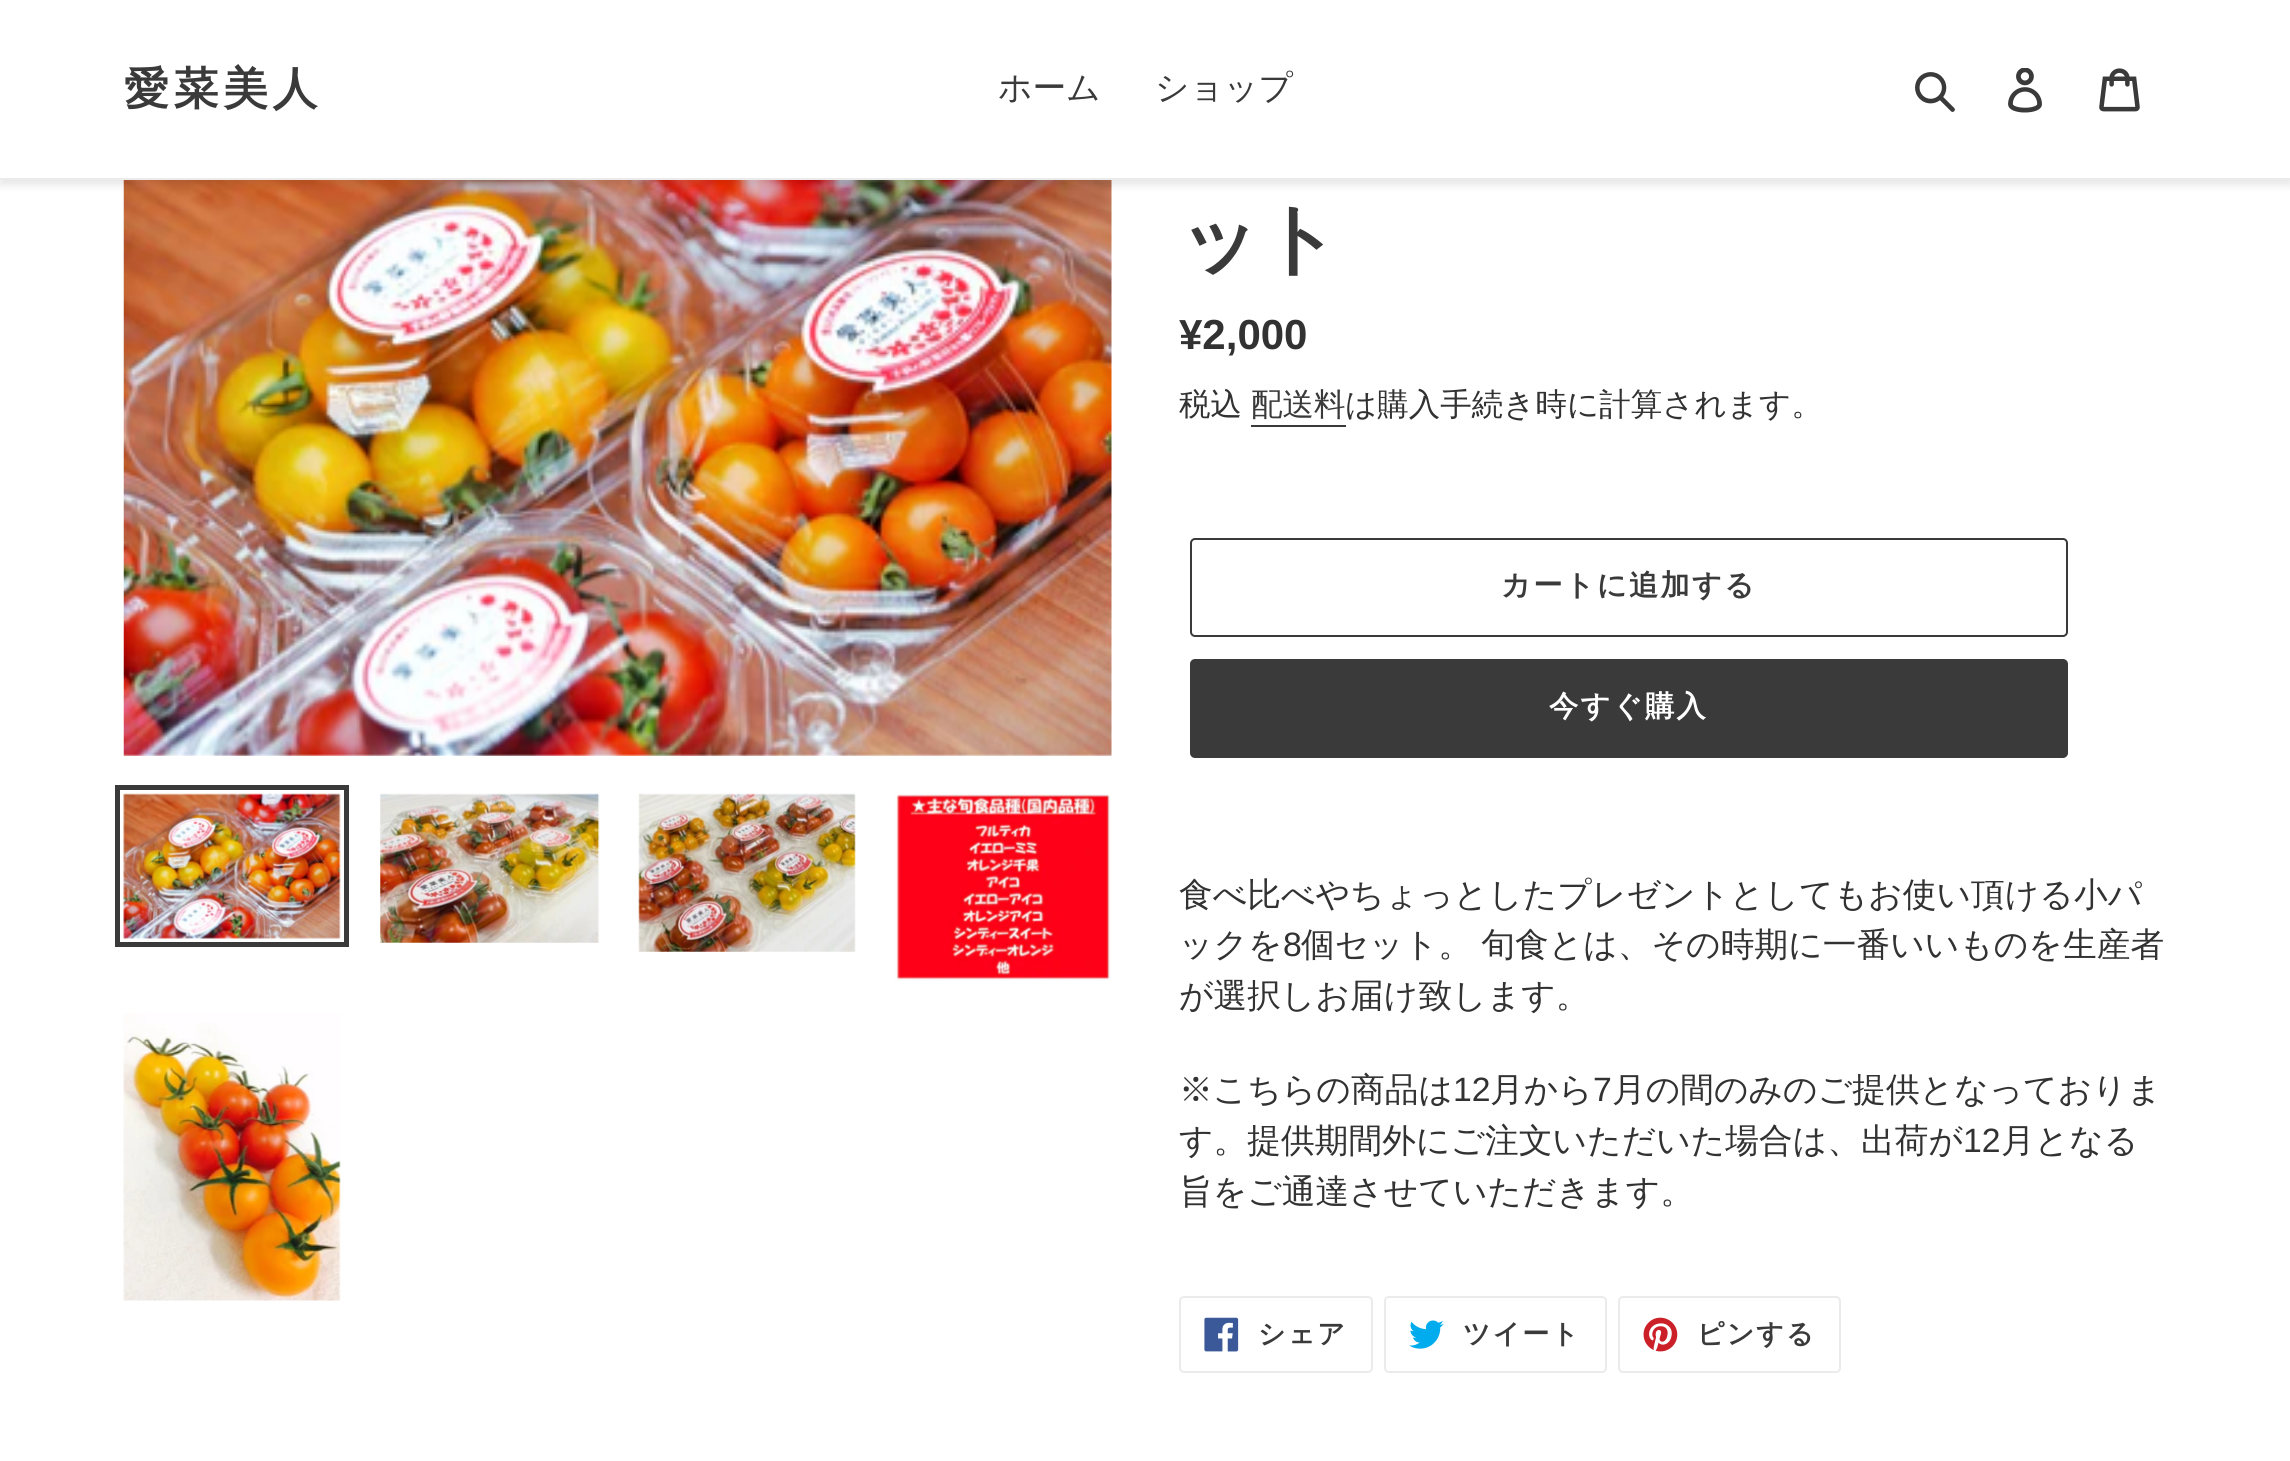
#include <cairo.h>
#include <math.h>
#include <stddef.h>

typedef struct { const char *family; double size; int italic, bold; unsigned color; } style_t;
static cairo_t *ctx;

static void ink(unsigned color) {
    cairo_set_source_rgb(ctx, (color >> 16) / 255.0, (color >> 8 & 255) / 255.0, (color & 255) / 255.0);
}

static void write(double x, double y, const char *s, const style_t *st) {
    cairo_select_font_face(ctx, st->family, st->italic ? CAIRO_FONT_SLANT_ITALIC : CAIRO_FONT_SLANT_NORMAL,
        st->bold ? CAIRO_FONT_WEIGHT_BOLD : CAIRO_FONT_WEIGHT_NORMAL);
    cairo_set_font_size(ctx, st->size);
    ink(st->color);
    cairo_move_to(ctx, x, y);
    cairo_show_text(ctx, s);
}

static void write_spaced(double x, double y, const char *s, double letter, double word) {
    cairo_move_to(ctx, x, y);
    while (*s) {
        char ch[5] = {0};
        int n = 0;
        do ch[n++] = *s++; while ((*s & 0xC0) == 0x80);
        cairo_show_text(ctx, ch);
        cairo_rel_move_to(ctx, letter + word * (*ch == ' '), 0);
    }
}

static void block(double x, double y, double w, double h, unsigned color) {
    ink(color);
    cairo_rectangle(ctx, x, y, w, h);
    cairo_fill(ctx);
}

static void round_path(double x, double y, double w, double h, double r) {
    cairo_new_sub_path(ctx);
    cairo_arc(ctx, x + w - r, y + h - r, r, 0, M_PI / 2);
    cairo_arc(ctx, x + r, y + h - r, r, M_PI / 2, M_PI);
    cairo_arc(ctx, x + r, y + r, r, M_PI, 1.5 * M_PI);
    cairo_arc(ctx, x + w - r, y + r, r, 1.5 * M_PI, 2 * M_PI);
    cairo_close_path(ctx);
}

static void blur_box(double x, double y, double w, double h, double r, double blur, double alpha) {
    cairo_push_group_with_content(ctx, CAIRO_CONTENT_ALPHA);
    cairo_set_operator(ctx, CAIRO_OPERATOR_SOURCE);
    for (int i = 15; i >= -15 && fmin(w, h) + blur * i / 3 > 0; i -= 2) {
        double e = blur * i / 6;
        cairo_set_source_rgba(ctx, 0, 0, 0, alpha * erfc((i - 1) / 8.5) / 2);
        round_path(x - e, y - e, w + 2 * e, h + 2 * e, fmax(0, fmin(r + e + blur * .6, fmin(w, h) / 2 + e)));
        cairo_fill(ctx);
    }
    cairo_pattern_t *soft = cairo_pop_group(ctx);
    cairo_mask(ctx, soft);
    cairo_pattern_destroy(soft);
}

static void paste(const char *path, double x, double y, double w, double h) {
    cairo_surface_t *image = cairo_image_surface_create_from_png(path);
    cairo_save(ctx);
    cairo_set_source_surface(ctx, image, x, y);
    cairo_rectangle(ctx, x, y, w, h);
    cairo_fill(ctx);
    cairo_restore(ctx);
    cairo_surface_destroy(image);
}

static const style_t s1 = {"WenQuanYi Zen Hei Medium", 33.75, 0, 0, 0x3a3a3a};
static const style_t s2 = {"WenQuanYi Zen Hei", 79, 0, 1, 0x3a3a3a};
static const style_t s3 = {"Liberation Sans", 42, 0, 1, 0x333232};
static const style_t s4 = {"WenQuanYi Zen Hei Medium", 31.5, 0, 0, 0x333232};
static const style_t s5 = {"WenQuanYi Zen Hei Medium", 31.5, 0, 0, 0x3a3a3a};
static const style_t s6 = {"WenQuanYi Zen Hei Medium", 33.75, 0, 0, 0x333232};
static const style_t s7 = {"Liberation Sans", 33.75, 0, 0, 0x333232};

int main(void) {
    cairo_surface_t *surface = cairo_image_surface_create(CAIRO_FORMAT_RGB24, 2290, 1461);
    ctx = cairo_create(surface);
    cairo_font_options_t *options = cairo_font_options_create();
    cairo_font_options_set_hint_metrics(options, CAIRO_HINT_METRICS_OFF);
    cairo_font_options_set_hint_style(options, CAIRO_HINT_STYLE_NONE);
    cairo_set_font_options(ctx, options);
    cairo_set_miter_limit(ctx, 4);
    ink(0xffffff);
    cairo_paint(ctx);
    paste("pic4.png", 123, 180, 989, 576);
    ink(0x000000);
    blur_box(0, 5, 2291, 180, 0, 4.5, 0.1);
    block(0, 0, 2290, 178, 0xffffff);
    block(0, 178, 2290, 2, 0xebebeb);
    cairo_select_font_face(ctx, "WenQuanYi Zen Hei", CAIRO_FONT_SLANT_NORMAL, CAIRO_FONT_WEIGHT_BOLD);
    cairo_set_font_size(ctx, 45);
    ink(0x3a3a3a);
    write_spaced(124, 104, "愛菜美人", 4.5, 0);
    write(998, 99, "ホーム", &s1);
    write(1155, 99, "ショップ", &s1);
    paste("pic1.png", 1915, 72, 40, 40);
    paste("pic2.png", 2008, 68, 34, 45);
    paste("pic3.png", 2099, 68, 41, 44);
    cairo_rectangle(ctx, 117.5, 787.5, 229, 157);
    cairo_set_line_width(ctx, 5);
    cairo_stroke(ctx);
    paste("pic5.png", 123, 793, 218, 146);
    paste("pic6.png", 380, 793, 220, 150);
    paste("pic7.png", 638, 793, 218, 159);
    paste("pic8.png", 895, 794, 216, 187);
    paste("pic9.png", 123, 1013, 218, 288);
    write(1179, 266, "ット", &s2);
    write(1179, 349, "¥2,000", &s3);
    write(1179, 415, "税込", &s4);
    write(1251, 415, "配送料", &s5);
    block(1251, 425, 95, 2, 0x3a3a3a);
    write(1345, 415, "は購入手続き時に計算されます。", &s4);
    round_path(1191, 539, 876, 97, 4);
    ink(0x3a3a3a);
    cairo_set_line_width(ctx, 2);
    cairo_stroke(ctx);
    cairo_select_font_face(ctx, "WenQuanYi Zen Hei", CAIRO_FONT_SLANT_NORMAL, CAIRO_FONT_WEIGHT_BOLD);
    cairo_set_font_size(ctx, 29.25);
    write_spaced(1501, 595, "カートに追加する", 2.25, 0);
    round_path(1190, 659, 878, 99, 5);
    cairo_fill(ctx);
    ink(0xffffff);
    write_spaced(1549, 716, "今すぐ購入", 2.25, 0);
    write(1179, 906, "食べ比べやちょっとしたプレゼントとしてもお使い頂ける小パ", &s6);
    write(1179, 956, "ックを", &s6);
    write(1283, 956, "8", &s7);
    cairo_select_font_face(ctx, "WenQuanYi Zen Hei Medium", CAIRO_FONT_SLANT_NORMAL, CAIRO_FONT_WEIGHT_NORMAL);
    write_spaced(1301, 956, "個セット。 旬食とは、その時期に一番いいものを生産者", 0, -1);
    write(1179, 1007, "が選択しお届け致します。", &s6);
    write(1179, 1101, "※こちらの商品は", &s6);
    write(1453, 1101, "12", &s7);
    write(1490, 1101, "月から", &s6);
    write(1593, 1101, "7", &s7);
    write(1612, 1101, "月の間のみのご提供となっておりま", &s6);
    write(1179, 1152, "す。提供期間外にご注文いただいた場合は、出荷が", &s6);
    write(1963, 1152, "12", &s7);
    write(2001, 1152, "月となる", &s6);
    write(1179, 1203, "旨をご通達させていただきます。", &s6);
    round_path(1180, 1297, 192, 75, 4);
    ink(0xebebeb);
    cairo_stroke(ctx);
    paste("pic10.png", 1204, 1317, 35, 35);
    cairo_select_font_face(ctx, "WenQuanYi Zen Hei", CAIRO_FONT_SLANT_NORMAL, CAIRO_FONT_WEIGHT_BOLD);
    cairo_set_font_size(ctx, 27);
    ink(0x3a3a3a);
    write_spaced(1258, 1343, "シェア", 2, 0);
    round_path(1385, 1297, 221, 75, 4);
    ink(0xebebeb);
    cairo_stroke(ctx);
    paste("pic11.png", 1409, 1320, 35, 29);
    ink(0x3a3a3a);
    write_spaced(1463, 1343, "ツイート", 2, 0);
    round_path(1619, 1297, 221, 75, 4);
    ink(0xebebeb);
    cairo_stroke(ctx);
    paste("pic12.png", 1643, 1317, 35, 35);
    ink(0x3a3a3a);
    write_spaced(1697, 1343, "ピンする", 2, 0);
    cairo_surface_write_to_png(surface, "screenshot.png");
    cairo_font_options_destroy(options);
    cairo_destroy(ctx);
    cairo_surface_destroy(surface);
    return 0;
}
